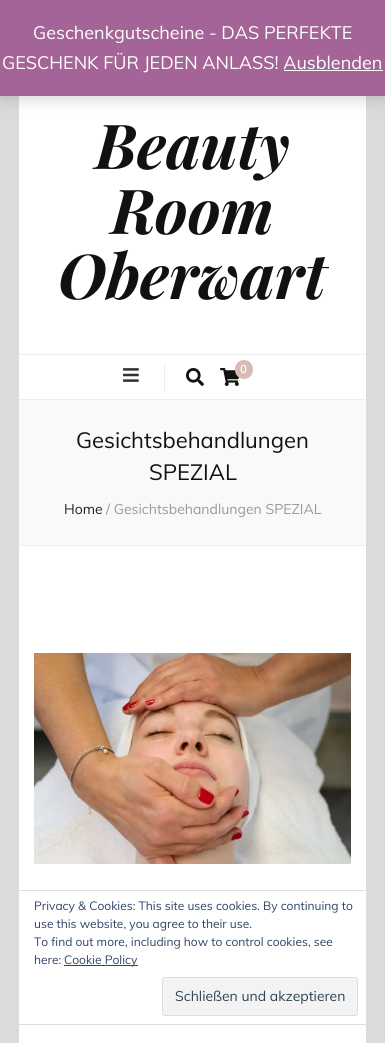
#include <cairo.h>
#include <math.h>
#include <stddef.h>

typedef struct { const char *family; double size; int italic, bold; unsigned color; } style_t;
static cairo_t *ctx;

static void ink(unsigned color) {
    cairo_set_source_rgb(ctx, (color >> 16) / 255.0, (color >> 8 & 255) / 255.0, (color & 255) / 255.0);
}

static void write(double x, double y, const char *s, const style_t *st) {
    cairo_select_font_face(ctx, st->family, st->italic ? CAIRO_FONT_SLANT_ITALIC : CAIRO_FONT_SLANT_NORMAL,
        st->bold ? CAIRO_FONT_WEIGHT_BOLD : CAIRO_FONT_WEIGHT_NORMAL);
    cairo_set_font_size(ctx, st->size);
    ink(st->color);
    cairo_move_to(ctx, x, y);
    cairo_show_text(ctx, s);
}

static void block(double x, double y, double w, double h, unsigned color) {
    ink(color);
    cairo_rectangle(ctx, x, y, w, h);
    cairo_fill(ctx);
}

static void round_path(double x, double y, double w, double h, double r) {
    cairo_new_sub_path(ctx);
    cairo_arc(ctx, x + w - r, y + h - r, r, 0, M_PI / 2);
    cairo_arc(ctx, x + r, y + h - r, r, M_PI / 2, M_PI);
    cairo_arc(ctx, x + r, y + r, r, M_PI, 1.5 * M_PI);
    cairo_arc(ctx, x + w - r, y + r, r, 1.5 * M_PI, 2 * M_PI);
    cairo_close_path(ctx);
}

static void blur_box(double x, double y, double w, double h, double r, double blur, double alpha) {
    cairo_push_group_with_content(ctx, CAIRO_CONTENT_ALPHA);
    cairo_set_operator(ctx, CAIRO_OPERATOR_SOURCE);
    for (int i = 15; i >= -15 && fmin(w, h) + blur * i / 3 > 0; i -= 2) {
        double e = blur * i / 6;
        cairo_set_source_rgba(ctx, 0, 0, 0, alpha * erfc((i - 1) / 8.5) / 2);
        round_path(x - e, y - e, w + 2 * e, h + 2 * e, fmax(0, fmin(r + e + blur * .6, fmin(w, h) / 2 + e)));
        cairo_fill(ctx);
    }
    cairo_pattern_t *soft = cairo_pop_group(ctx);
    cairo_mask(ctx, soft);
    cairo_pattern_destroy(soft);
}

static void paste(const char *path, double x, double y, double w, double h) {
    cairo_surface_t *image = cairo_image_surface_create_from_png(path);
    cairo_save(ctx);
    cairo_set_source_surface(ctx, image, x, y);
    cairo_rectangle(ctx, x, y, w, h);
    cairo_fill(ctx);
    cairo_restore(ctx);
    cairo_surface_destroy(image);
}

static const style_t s1 = {"Muli", 18, 0, 0, 0xffffff};
static const style_t s2 = {"Playfair Display", 62, 1, 1, 0x111111};
static const style_t s3 = {"Muli", 11, 0, 1, 0xffffff};
static const style_t s4 = {"Muli", 22, 0, 0, 0x111111};
static const style_t s5 = {"Muli", 14, 0, 0, 0x222222};
static const style_t s6 = {"Muli", 14, 0, 0, 0x999999};
static const style_t s7 = {"Muli", 12, 0, 0, 0x2e4467};
static const style_t s8 = {"Muli", 14, 0, 0, 0x2e4453};

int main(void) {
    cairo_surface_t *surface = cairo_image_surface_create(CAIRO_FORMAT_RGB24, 385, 1043);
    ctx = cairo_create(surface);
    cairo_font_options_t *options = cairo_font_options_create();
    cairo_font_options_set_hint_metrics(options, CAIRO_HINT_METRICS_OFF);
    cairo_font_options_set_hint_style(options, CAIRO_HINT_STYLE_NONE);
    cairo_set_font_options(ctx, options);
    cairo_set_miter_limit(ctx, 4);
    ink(0xdbdbdb);
    cairo_paint(ctx);
    block(19, 96, 347, 947, 0xffffff);
    ink(0x000000);
    blur_box(0, 1, 385, 96, 0, 9, 0.2);
    block(0, 0, 385, 96, 0xa46497);
    write(33, 39, "Geschenkgutscheine - DAS PERFEKTE", &s1);
    write(2, 69, "GESCHENK FÜR JEDEN ANLASS! Ausblenden", &s1);
    block(284, 70, 99, 1, 0xffffff);
    write(95, 169, "Beauty", &s2);
    write(111, 234, "Room", &s2);
    write(58, 299, "Oberwart", &s2);
    block(19, 354, 347, 1, 0xeeeeee);
    block(19, 399, 347, 1, 0xeeeeee);
    paste("pic1.png", 123, 368, 16, 14);
    block(164, 363, 1, 29, 0xeeeeee);
    paste("pic2.png", 186, 368, 18, 18);
    paste("pic3.png", 220, 368, 19, 18);
    ink(0xd8bbb5);
    round_path(235, 360, 18, 19, 9);
    cairo_fill(ctx);
    write(240, 373, "0", &s3);
    block(19, 400, 347, 145, 0xf9f9f9);
    block(19, 545, 347, 1, 0xeeeeee);
    write(76, 448, "Gesichtsbehandlungen", &s4);
    write(149, 480, "SPEZIAL", &s4);
    write(64, 514, "Home", &s5);
    write(106, 514, "/ Gesichtsbehandlungen SPEZIAL", &s6);
    paste("pic4.png", 34, 653, 317, 211);
    cairo_rectangle(ctx, 18.5, 890.5, 348, 134);
    ink(0xdedede);
    cairo_set_line_width(ctx, 1);
    cairo_stroke(ctx);
    write(34, 910, "Privacy & Cookies: This site uses cookies. By continuing to", &s7);
    write(34, 928, "use this website, you agree to their use.", &s7);
    write(34, 946, "To find out more, including how to control cookies, see", &s7);
    write(34, 964, "here:", &s7);
    block(64, 965, 74, 1, 0x2e4467);
    write(64, 964, "Cookie Policy", &s7);
    ink(0xf3f3f3);
    round_path(162.5, 977.5, 195, 38, 2.5);
    cairo_fill_preserve(ctx);
    ink(0xdedede);
    cairo_stroke(ctx);
    write(175, 1001, "Schließen und akzeptieren", &s8);
    cairo_surface_write_to_png(surface, "screenshot.png");
    cairo_font_options_destroy(options);
    cairo_destroy(ctx);
    cairo_surface_destroy(surface);
    return 0;
}
